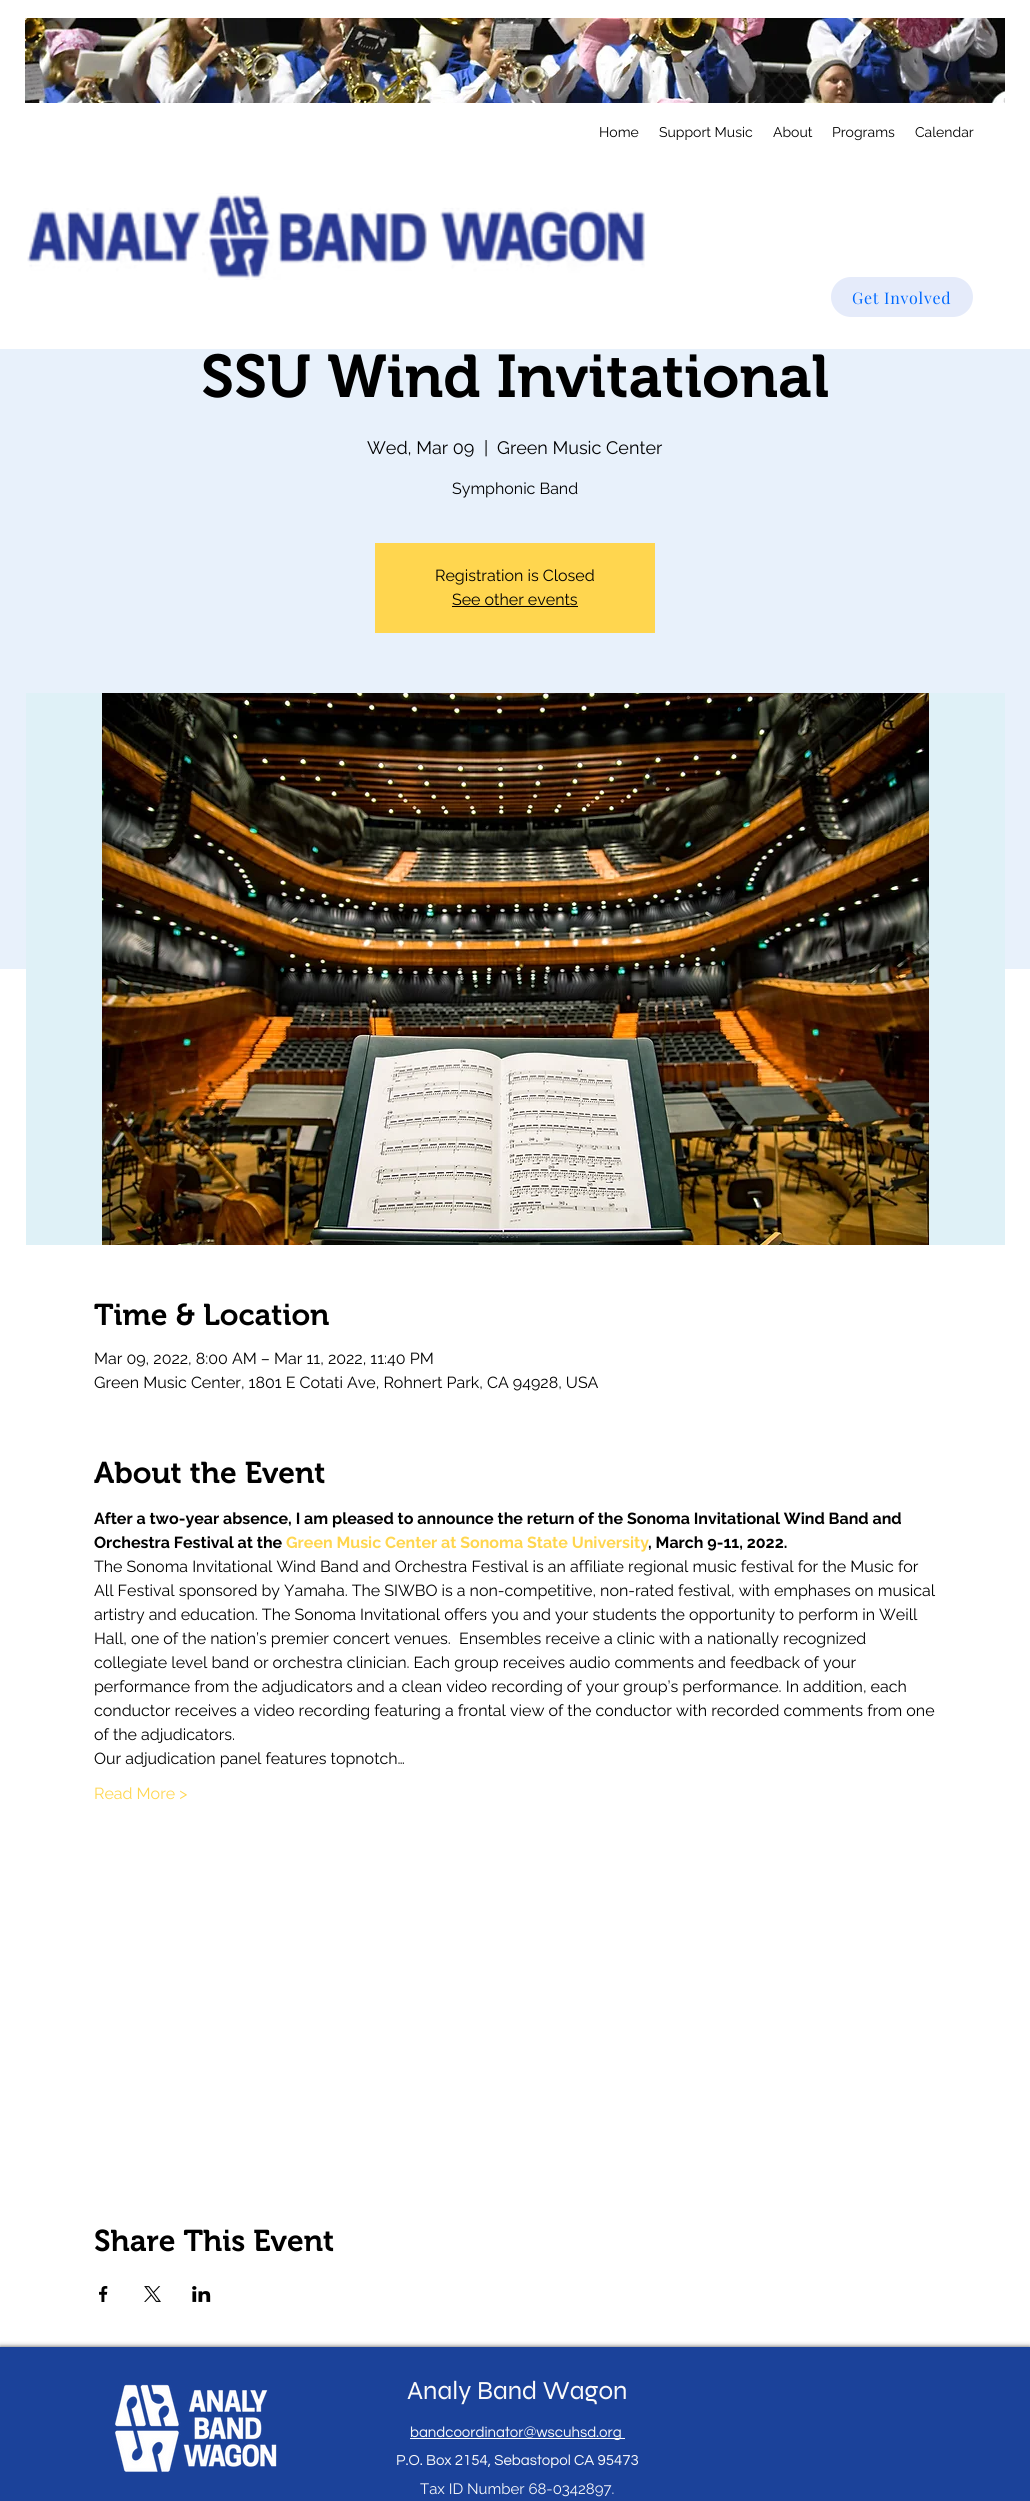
#include <cairo.h>
#include <math.h>
#include <stddef.h>

typedef struct { const char *family; double size; int italic, bold; unsigned color; } style_t;
static cairo_t *ctx;

static void ink(unsigned color) {
    cairo_set_source_rgb(ctx, (color >> 16) / 255.0, (color >> 8 & 255) / 255.0, (color & 255) / 255.0);
}

static void write(double x, double y, const char *s, const style_t *st) {
    cairo_select_font_face(ctx, st->family, st->italic ? CAIRO_FONT_SLANT_ITALIC : CAIRO_FONT_SLANT_NORMAL,
        st->bold ? CAIRO_FONT_WEIGHT_BOLD : CAIRO_FONT_WEIGHT_NORMAL);
    cairo_set_font_size(ctx, st->size);
    ink(st->color);
    cairo_move_to(ctx, x, y);
    cairo_show_text(ctx, s);
}

static void write_spaced(double x, double y, const char *s, double letter, double word) {
    cairo_move_to(ctx, x, y);
    while (*s) {
        char ch[5] = {0};
        int n = 0;
        do ch[n++] = *s++; while ((*s & 0xC0) == 0x80);
        cairo_show_text(ctx, ch);
        cairo_rel_move_to(ctx, letter + word * (*ch == ' '), 0);
    }
}

static void block(double x, double y, double w, double h, unsigned color) {
    ink(color);
    cairo_rectangle(ctx, x, y, w, h);
    cairo_fill(ctx);
}

static void round_path(double x, double y, double w, double h, double r) {
    cairo_new_sub_path(ctx);
    cairo_arc(ctx, x + w - r, y + h - r, r, 0, M_PI / 2);
    cairo_arc(ctx, x + r, y + h - r, r, M_PI / 2, M_PI);
    cairo_arc(ctx, x + r, y + r, r, M_PI, 1.5 * M_PI);
    cairo_arc(ctx, x + w - r, y + r, r, 1.5 * M_PI, 2 * M_PI);
    cairo_close_path(ctx);
}

static void blur_box(double x, double y, double w, double h, double r, double blur, double alpha) {
    cairo_push_group_with_content(ctx, CAIRO_CONTENT_ALPHA);
    cairo_set_operator(ctx, CAIRO_OPERATOR_SOURCE);
    for (int i = 15; i >= -15 && fmin(w, h) + blur * i / 3 > 0; i -= 2) {
        double e = blur * i / 6;
        cairo_set_source_rgba(ctx, 0, 0, 0, alpha * erfc((i - 1) / 8.5) / 2);
        round_path(x - e, y - e, w + 2 * e, h + 2 * e, fmax(0, fmin(r + e + blur * .6, fmin(w, h) / 2 + e)));
        cairo_fill(ctx);
    }
    cairo_pattern_t *soft = cairo_pop_group(ctx);
    cairo_mask(ctx, soft);
    cairo_pattern_destroy(soft);
}

static void paste(const char *path, double x, double y, double w, double h) {
    cairo_surface_t *image = cairo_image_surface_create_from_png(path);
    cairo_save(ctx);
    cairo_set_source_surface(ctx, image, x, y);
    cairo_rectangle(ctx, x, y, w, h);
    cairo_fill(ctx);
    cairo_restore(ctx);
    cairo_surface_destroy(image);
}

static const style_t s1 = {"Raleway", 14, 0, 0, 0x000000};
static const style_t s2 = {"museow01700 SemiBold", 60, 0, 0, 0x000000};
static const style_t s3 = {"Raleway", 18, 0, 0, 0x000000};
static const style_t s4 = {"Raleway", 16, 0, 0, 0x000000};
static const style_t s5 = {"museow01700 SemiBold", 30, 0, 0, 0x000000};
static const style_t s6 = {"Raleway", 16, 0, 1, 0x000000};
static const style_t s7 = {"Raleway", 16, 0, 1, 0xffd64f};
static const style_t s8 = {"Raleway", 16, 0, 0, 0xffd64f};
static const style_t s9 = {"Syne", 26, 0, 0, 0xfafafa};
static const style_t s10 = {"Questrial", 15, 0, 0, 0xfafafa};
static const style_t s11 = {"Raleway", 15, 0, 0, 0xfafafa};

int main(void) {
    cairo_surface_t *surface = cairo_image_surface_create(CAIRO_FORMAT_RGB24, 1030, 2501);
    ctx = cairo_create(surface);
    cairo_font_options_t *options = cairo_font_options_create();
    cairo_font_options_set_hint_metrics(options, CAIRO_HINT_METRICS_OFF);
    cairo_font_options_set_hint_style(options, CAIRO_HINT_STYLE_NONE);
    cairo_set_font_options(ctx, options);
    cairo_set_miter_limit(ctx, 4);
    ink(0xffffff);
    cairo_paint(ctx);
    paste("pic1.png", 25, 18, 980, 85);
    write(599, 137, "Home", &s1);
    write(659, 137, "Support Music", &s1);
    write(773, 137, "About", &s1);
    write(832, 137, "Programs", &s1);
    write(915, 137, "Calendar", &s1);
    paste("pic2.png", 27, 193, 618, 87);
    ink(0xe5ebfa);
    round_path(831, 277, 142, 40, 20);
    cairo_fill(ctx);
    cairo_select_font_face(ctx, "Playfair Display", CAIRO_FONT_SLANT_NORMAL, CAIRO_FONT_WEIGHT_NORMAL);
    cairo_set_font_size(ctx, 16);
    ink(0x0069ff);
    write_spaced(852, 304, "Get Involved", 0.75, 0);
    block(0, 349, 1030, 620, 0xe8f1fb);
    write(201, 397, "SSU Wind Invitational", &s2);
    write(367, 454, "Wed, Mar 09", &s3);
    write(484, 454, "|", &s3);
    write(497, 454, "Green Music Center", &s3);
    write(452, 494, "Symphonic Band", &s4);
    block(375, 543, 280, 90, 0xffd64f);
    write(435, 581, "Registration is Closed", &s4);
    write(452, 605, "See other events", &s4);
    block(452, 606, 126, 1, 0x000000);
    block(26, 693, 979, 552, 0xdff1f7);
    paste("pic3.png", 102, 693, 827, 552);
    write(94, 1325, "Time & Location", &s5);
    write(94, 1364, "Mar 09, 2022, 8:00 AM – Mar 11, 2022, 11:40 PM", &s4);
    write(94, 1388, "Green Music Center, 1801 E Cotati Ave, Rohnert Park, CA 94928, USA", &s4);
    write(94, 1483, "About the Event", &s5);
    write(94, 1524, "After a two-year absence, I am pleased to announce the return of the Sonoma Invitational Wind Band and", &s6);
    write(94, 1548, "Orchestra Festival at the", &s6);
    write(286, 1548, "Green Music Center at Sonoma State University", &s7);
    write(648, 1548, ", March 9-11, 2022.", &s6);
    write(94, 1572, "The Sonoma Invitational Wind Band and Orchestra Festival is an affiliate regional music festival for the Music for", &s4);
    write(94, 1596, "All Festival sponsored by Yamaha. The SIWBO is a non-competitive, non-rated festival, with emphases on musical", &s4);
    write(94, 1620, "artistry and education. The Sonoma Invitational offers you and your students the opportunity to perform in Weill", &s4);
    write(94, 1644, "Hall, one of the nation’s premier concert venues.  Ensembles receive a clinic with a nationally recognized", &s4);
    write(94, 1668, "collegiate level band or orchestra clinician. Each group receives audio comments and feedback of your", &s4);
    write(94, 1692, "performance from the adjudicators and a clean video recording of your group’s performance. In addition, each", &s4);
    write(94, 1716, "conductor receives a video recording featuring a frontal view of the conductor with recorded comments from one", &s4);
    write(94, 1740, "of the adjudicators.", &s4);
    write(94, 1764, "Our adjudication panel features topnotch…", &s4);
    write(94, 1799, "Read More >", &s8);
    write(94, 2251, "Share This Event", &s5);
    paste("pic4.png", 99, 2286, 9, 16);
    paste("pic5.png", 144, 2286, 17, 16);
    paste("pic6.png", 192, 2286, 19, 16);
    ink(0x000000);
    blur_box(0, 2347, 1030, 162, 0, 2.5, 0.7);
    block(0, 2347, 1030, 154, 0x1b429a);
    paste("pic7.png", 115, 2384, 162, 88);
    write(407, 2399, "Analy Band Wagon", &s9);
    block(410, 2438, 215, 1, 0xffffff);
    write(410, 2437, "bandcoordinator@wscuhsd.org", &s10);
    write(396, 2465, "P.O. Box 2154, Sebastopol CA 95473", &s10);
    write(420, 2494, "Tax ID Number 68-0342897.", &s11);
    cairo_surface_write_to_png(surface, "screenshot.png");
    cairo_font_options_destroy(options);
    cairo_destroy(ctx);
    cairo_surface_destroy(surface);
    return 0;
}
